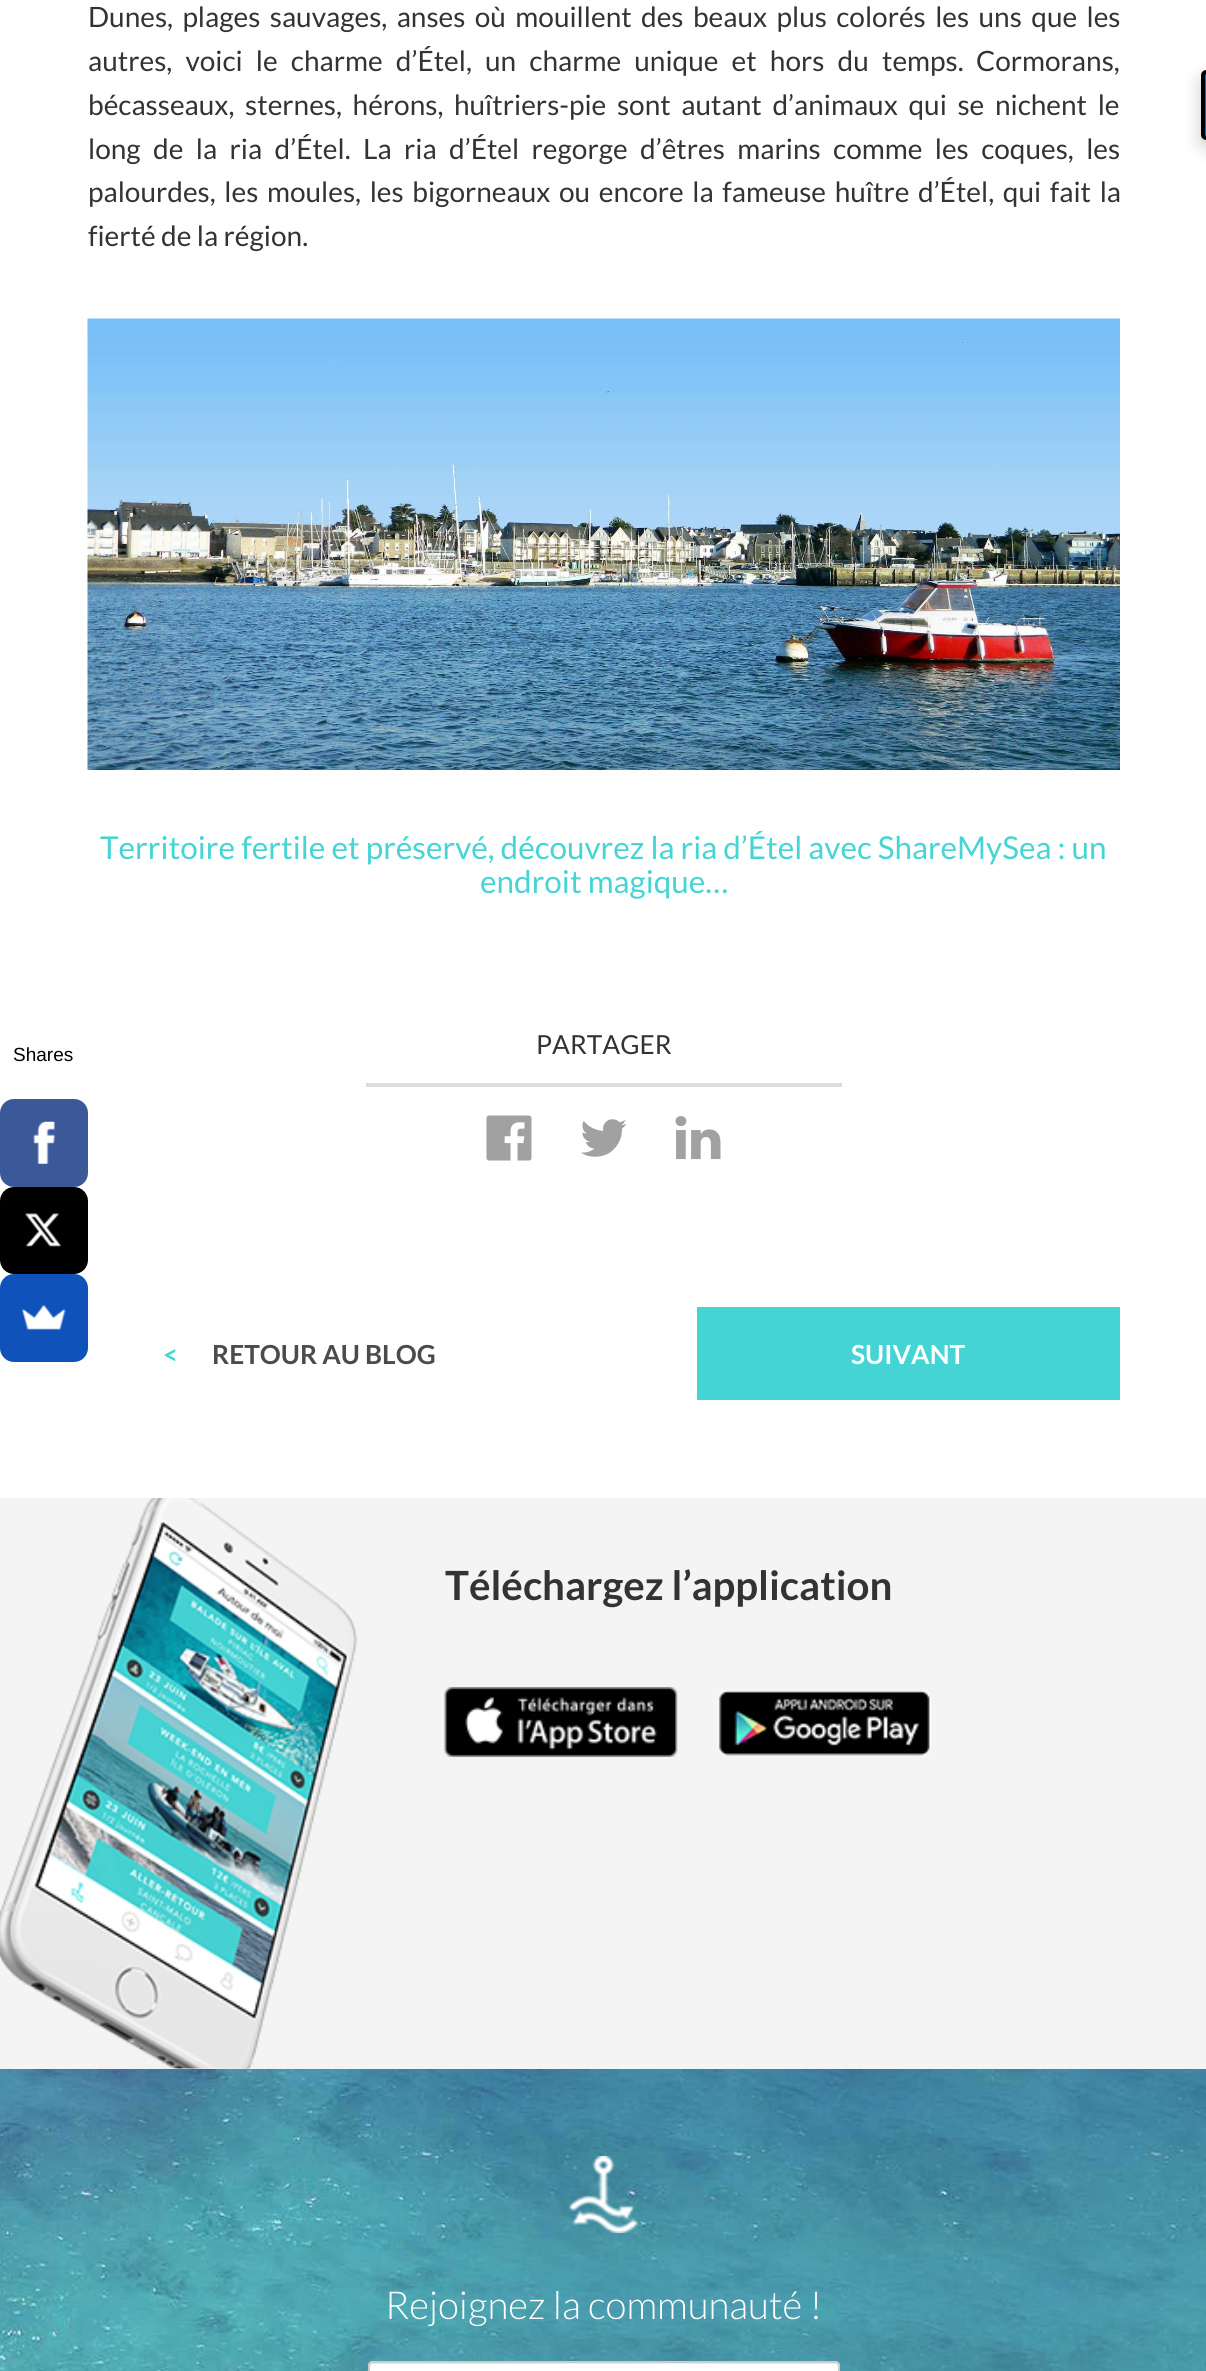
#include <cairo.h>
#include <math.h>
#include <stddef.h>

typedef struct { const char *family; double size; int italic, bold; unsigned color; } style_t;
static cairo_t *ctx;

static void ink(unsigned color) {
    cairo_set_source_rgb(ctx, (color >> 16) / 255.0, (color >> 8 & 255) / 255.0, (color & 255) / 255.0);
}

static void write(double x, double y, const char *s, const style_t *st) {
    cairo_select_font_face(ctx, st->family, st->italic ? CAIRO_FONT_SLANT_ITALIC : CAIRO_FONT_SLANT_NORMAL,
        st->bold ? CAIRO_FONT_WEIGHT_BOLD : CAIRO_FONT_WEIGHT_NORMAL);
    cairo_set_font_size(ctx, st->size);
    ink(st->color);
    cairo_move_to(ctx, x, y);
    cairo_show_text(ctx, s);
}

static void write_spaced(double x, double y, const char *s, double letter, double word) {
    cairo_move_to(ctx, x, y);
    while (*s) {
        char ch[5] = {0};
        int n = 0;
        do ch[n++] = *s++; while ((*s & 0xC0) == 0x80);
        cairo_show_text(ctx, ch);
        cairo_rel_move_to(ctx, letter + word * (*ch == ' '), 0);
    }
}

static void block(double x, double y, double w, double h, unsigned color) {
    ink(color);
    cairo_rectangle(ctx, x, y, w, h);
    cairo_fill(ctx);
}

static void round_path(double x, double y, double w, double h, double r) {
    cairo_new_sub_path(ctx);
    cairo_arc(ctx, x + w - r, y + h - r, r, 0, M_PI / 2);
    cairo_arc(ctx, x + r, y + h - r, r, M_PI / 2, M_PI);
    cairo_arc(ctx, x + r, y + r, r, M_PI, 1.5 * M_PI);
    cairo_arc(ctx, x + w - r, y + r, r, 1.5 * M_PI, 2 * M_PI);
    cairo_close_path(ctx);
}

static void blur_box(double x, double y, double w, double h, double r, double blur, double alpha) {
    cairo_push_group_with_content(ctx, CAIRO_CONTENT_ALPHA);
    cairo_set_operator(ctx, CAIRO_OPERATOR_SOURCE);
    for (int i = 15; i >= -15 && fmin(w, h) + blur * i / 3 > 0; i -= 2) {
        double e = blur * i / 6;
        cairo_set_source_rgba(ctx, 0, 0, 0, alpha * erfc((i - 1) / 8.5) / 2);
        round_path(x - e, y - e, w + 2 * e, h + 2 * e, fmax(0, fmin(r + e + blur * .6, fmin(w, h) / 2 + e)));
        cairo_fill(ctx);
    }
    cairo_pattern_t *soft = cairo_pop_group(ctx);
    cairo_mask(ctx, soft);
    cairo_pattern_destroy(soft);
}

static void paste(const char *path, double x, double y, double w, double h) {
    cairo_surface_t *image = cairo_image_surface_create_from_png(path);
    cairo_save(ctx);
    cairo_set_source_surface(ctx, image, x, y);
    cairo_rectangle(ctx, x, y, w, h);
    cairo_fill(ctx);
    cairo_restore(ctx);
    cairo_surface_destroy(image);
}

static const style_t s1 = {"Lato", 28, 0, 0, 0x333333};
static const style_t s2 = {"Lato", 31.5, 0, 0, 0x46d4d4};
static const style_t s3 = {"Lato", 26.25, 0, 0, 0x333333};
static const style_t s4 = {"Lato", 26.25, 0, 1, 0x46d4d4};
static const style_t s5 = {"Lato", 26.25, 0, 1, 0x4b4b4b};
static const style_t s6 = {"Lato", 26.25, 0, 1, 0xffffff};
static const style_t s7 = {"Lato", 40.25, 0, 1, 0x333333};
static const style_t s8 = {"Lato Light", 38.5, 0, 0, 0xffffff};
static const style_t s9 = {"Liberation Sans", 19, 0, 0, 0x000000};

int main(void) {
    cairo_surface_t *surface = cairo_image_surface_create(CAIRO_FORMAT_RGB24, 1206, 2371);
    ctx = cairo_create(surface);
    cairo_font_options_t *options = cairo_font_options_create();
    cairo_font_options_set_hint_metrics(options, CAIRO_HINT_METRICS_OFF);
    cairo_font_options_set_hint_style(options, CAIRO_HINT_STYLE_NONE);
    cairo_set_font_options(ctx, options);
    cairo_set_miter_limit(ctx, 4);
    ink(0xffffff);
    cairo_paint(ctx);
    cairo_select_font_face(ctx, "Lato", CAIRO_FONT_SLANT_NORMAL, CAIRO_FONT_WEIGHT_NORMAL);
    cairo_set_font_size(ctx, 28);
    ink(0x333333);
    write_spaced(88, 27, "Dunes, plages sauvages, anses où mouillent des beaux plus colorés les uns que les", 0, 4);
    write_spaced(88, 71, "autres, voici le charme d’Étel, un charme unique et hors du temps.", 0, 7.75);
    write(976, 71, "Cormorans,", &s1);
    write_spaced(88, 115, "bécasseaux, sternes, hérons, huîtriers-pie sont autant d’animaux qui se nichent le", 0, 5.25);
    write_spaced(88, 159, "long de la ria d’Étel.", 0, 7);
    write_spaced(363, 159, "La ria d’Étel regorge d’êtres marins comme les coques, les", 0, 7);
    write_spaced(88, 202, "palourdes, les moules, les bigorneaux ou encore la fameuse huître d’Étel, qui fait la", 0, 3.25);
    write(88, 246, "fierté de la région.", &s1);
    paste("pic1.png", 87, 318, 1033, 452);
    write(100, 859, "Territoire fertile et préservé, découvrez la ria d’Étel avec ShareMySea : un", &s2);
    write(480, 893, "endroit magique…", &s2);
    block(366, 1083, 476, 4, 0xdddddd);
    write(536, 1054, "PARTAGER", &s3);
    paste("pic2.png", 486, 1115, 46, 46);
    paste("pic3.png", 580, 1119, 47, 38);
    paste("pic4.png", 675, 1116, 46, 44);
    write(163, 1364, "<", &s4);
    write(212, 1364, "RETOUR AU BLOG", &s5);
    block(697, 1307, 423, 93, 0x45d4d4);
    write(851, 1364, "SUIVANT", &s6);
    block(0, 1498, 1206, 571, 0xf4f4f4);
    paste("pic5.png", 0, 1498, 358, 571);
    write(445, 1600, "Téléchargez l’application", &s7);
    paste("pic6.png", 444, 1687, 234, 70);
    paste("pic7.png", 717, 1689, 214, 68);
    paste("pic8.png", 0, 2069, 1206, 302);
    paste("pic9.png", 568, 2156, 71, 77);
    write(385, 2319, "Rejoignez la communauté !", &s8);
    round_path(368, 2361, 472, 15, 5);
    cairo_fill(ctx);
    ink(0xececec);
    cairo_new_path(ctx);
    cairo_move_to(ctx, 373, 2364);
    cairo_line_to(ctx, 835, 2364);
    cairo_curve_to(ctx, 837, 2364, 838, 2366, 838, 2368);
    cairo_curve_to(ctx, 838, 2365, 837, 2363, 834, 2363);
    cairo_line_to(ctx, 373, 2363);
    cairo_curve_to(ctx, 370, 2363, 369, 2365, 369, 2368);
    cairo_curve_to(ctx, 369, 2366, 371, 2364, 373, 2364);
    cairo_close_path(ctx);
    cairo_fill(ctx);
    round_path(369, 2362, 470, 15, 4);
    ink(0xcccccc);
    cairo_stroke(ctx);
    ink(0x000000);
    blur_box(1201, 77, 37, 70, 5, 9, 0.2);
    ink(0x0073b7);
    cairo_new_path(ctx);
    cairo_move_to(ctx, 1206, 72);
    cairo_line_to(ctx, 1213, 72);
    cairo_line_to(ctx, 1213, 138);
    cairo_line_to(ctx, 1206, 138);
    cairo_curve_to(ctx, 1204.5, 138, 1203, 136.5, 1203, 135);
    cairo_line_to(ctx, 1203, 75);
    cairo_curve_to(ctx, 1203, 73.5, 1204.5, 72, 1206, 72);
    cairo_close_path(ctx);
    cairo_fill_preserve(ctx);
    ink(0x000000);
    cairo_set_line_width(ctx, 4);
    cairo_stroke(ctx);
    write(13, 1061, "Shares", &s9);
    ink(0x3b5998);
    round_path(0, 1099, 88, 88, 14);
    cairo_fill(ctx);
    paste("pic10.png", 33, 1121, 22, 43);
    ink(0x000000);
    round_path(0, 1187, 88, 87, 14);
    cairo_fill(ctx);
    paste("pic11.png", 25, 1213, 36, 34);
    ink(0x0f52ba);
    round_path(0, 1274, 88, 88, 14);
    cairo_fill(ctx);
    paste("pic12.png", 22, 1304, 44, 26);
    cairo_surface_write_to_png(surface, "screenshot.png");
    cairo_font_options_destroy(options);
    cairo_destroy(ctx);
    cairo_surface_destroy(surface);
    return 0;
}
